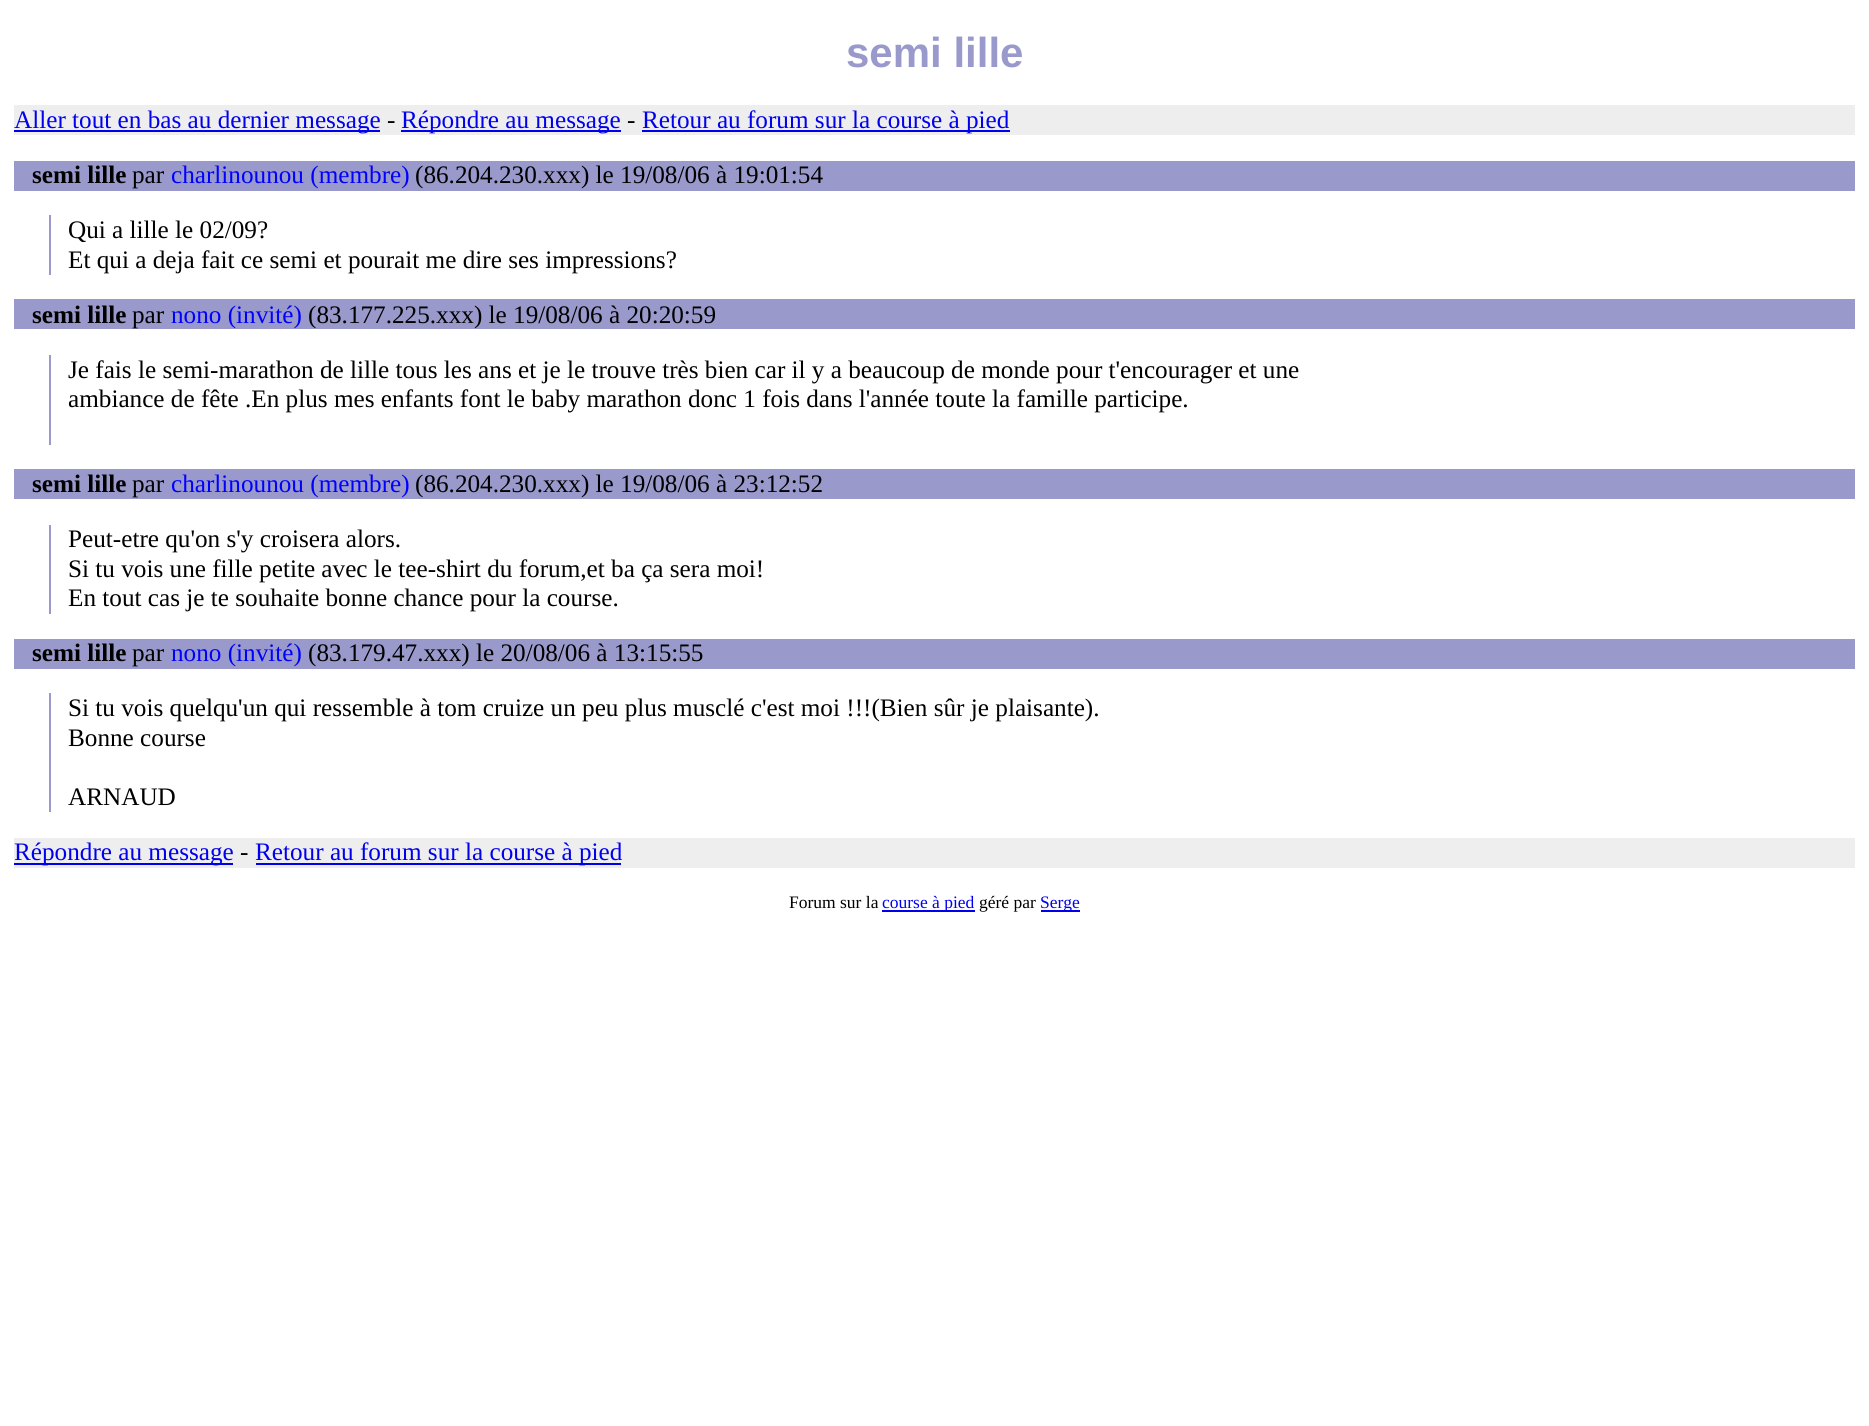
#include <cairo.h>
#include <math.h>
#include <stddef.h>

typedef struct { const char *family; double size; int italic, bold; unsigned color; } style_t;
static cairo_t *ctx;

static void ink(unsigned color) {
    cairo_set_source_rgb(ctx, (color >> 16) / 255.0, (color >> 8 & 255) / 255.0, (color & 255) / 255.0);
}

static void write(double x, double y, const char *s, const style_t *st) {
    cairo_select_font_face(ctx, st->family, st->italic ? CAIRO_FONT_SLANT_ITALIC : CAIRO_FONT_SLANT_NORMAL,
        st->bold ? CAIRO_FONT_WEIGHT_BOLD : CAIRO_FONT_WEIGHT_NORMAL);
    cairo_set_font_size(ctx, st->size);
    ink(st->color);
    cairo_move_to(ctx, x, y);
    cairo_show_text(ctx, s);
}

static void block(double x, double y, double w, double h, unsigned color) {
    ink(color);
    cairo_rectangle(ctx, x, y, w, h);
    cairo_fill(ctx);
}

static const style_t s1 = {"Liberation Sans", 42, 0, 1, 0x9999cc};
static const style_t s2 = {"Liberation Serif", 25.2, 0, 0, 0x0000ee};
static const style_t s3 = {"Liberation Serif", 25.2, 0, 0, 0x000000};
static const style_t s4 = {"Liberation Serif", 25.2, 0, 1, 0x000000};
static const style_t s5 = {"Liberation Serif", 25.2, 0, 0, 0x0000ff};
static const style_t s6 = {"Liberation Serif", 17.5, 0, 0, 0x000000};
static const style_t s7 = {"Liberation Serif", 17.5, 0, 0, 0x0000ee};

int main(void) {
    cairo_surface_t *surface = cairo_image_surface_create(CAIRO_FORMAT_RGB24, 1869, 1426);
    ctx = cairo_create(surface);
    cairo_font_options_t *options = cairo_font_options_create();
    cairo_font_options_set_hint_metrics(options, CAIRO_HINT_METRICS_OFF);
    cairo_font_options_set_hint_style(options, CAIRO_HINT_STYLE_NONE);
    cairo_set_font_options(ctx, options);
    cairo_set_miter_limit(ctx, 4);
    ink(0xffffff);
    cairo_paint(ctx);
    write(846, 67, "semi lille", &s1);
    block(14, 105, 1841, 30, 0xeeeeee);
    block(14, 130, 366, 2, 0x0000ee);
    write(14, 128, "Aller tout en bas au dernier message", &s2);
    write(387, 128, "-", &s3);
    block(401, 130, 220, 2, 0x0000ee);
    write(401, 128, "Répondre au message", &s2);
    write(627, 128, "-", &s3);
    block(642, 130, 368, 2, 0x0000ee);
    write(642, 128, "Retour au forum sur la course à pied", &s2);
    block(14, 161, 1841, 30, 0x9999cc);
    write(32, 183, "semi lille", &s4);
    write(132, 183, "par", &s3);
    write(171, 183, "charlinounou (membre)", &s5);
    write(415, 183, "(86.204.230.xxx) le 19/08/06 à 19:01:54", &s3);
    block(49, 215, 2, 60, 0x9999cc);
    write(68, 238, "Qui a lille le 02/09?", &s3);
    write(68, 268, "Et qui a deja fait ce semi et pourait me dire ses impressions?", &s3);
    block(14, 299, 1841, 30, 0x9999cc);
    write(32, 323, "semi lille", &s4);
    write(132, 323, "par", &s3);
    write(171, 323, "nono (invité)", &s5);
    write(308, 323, "(83.177.225.xxx) le 19/08/06 à 20:20:59", &s3);
    block(49, 355, 2, 90, 0x9999cc);
    write(68, 378, "Je fais le semi-marathon de lille tous les ans", &s3);
    write(518, 378, "et je le trouve très bien car il y a beaucoup de monde pour t'encourager et une", &s3);
    write(68, 407, "ambiance de fête .En plus mes enfants font le baby marathon donc 1 fois dans l'année toute la famille participe.", &s3);
    block(14, 469, 1841, 30, 0x9999cc);
    write(32, 492, "semi lille", &s4);
    write(132, 492, "par", &s3);
    write(171, 492, "charlinounou (membre)", &s5);
    write(415, 492, "(86.204.230.xxx) le 19/08/06 à 23:12:52", &s3);
    block(49, 525, 2, 89, 0x9999cc);
    write(68, 547, "Peut-etre qu'on s'y croisera alors.", &s3);
    write(68, 577, "Si tu vois une fille petite avec le tee-shirt du forum,et ba ça sera moi!", &s3);
    write(68, 606, "En tout cas je te souhaite bonne chance pour la course.", &s3);
    block(14, 639, 1841, 30, 0x9999cc);
    write(32, 661, "semi lille", &s4);
    write(132, 661, "par", &s3);
    write(171, 661, "nono (invité)", &s5);
    write(308, 661, "(83.179.47.xxx) le 20/08/06 à 13:15:55", &s3);
    block(49, 693, 2, 119, 0x9999cc);
    write(68, 716, "Si tu vois quelqu'un qui ressemble à tom cruize un peu plus musclé c'est moi !!!(Bien sûr je plaisante).", &s3);
    write(68, 746, "Bonne course", &s3);
    write(68, 805, "ARNAUD", &s3);
    block(14, 838, 1841, 30, 0xeeeeee);
    block(14, 863, 219, 2, 0x0000ee);
    write(14, 860, "Répondre au message", &s2);
    write(240, 860, "-", &s3);
    block(256, 863, 365, 2, 0x0000ee);
    write(255, 860, "Retour au forum sur la course à pied", &s2);
    write(789, 908, "Forum sur la", &s6);
    block(882, 910, 93, 2, 0x0000ee);
    write(882, 908, "course à pied", &s7);
    write(979, 908, "géré par", &s6);
    block(1041, 910, 39, 2, 0x0000ee);
    write(1040, 908, "Serge", &s7);
    cairo_surface_write_to_png(surface, "screenshot.png");
    cairo_font_options_destroy(options);
    cairo_destroy(ctx);
    cairo_surface_destroy(surface);
    return 0;
}
